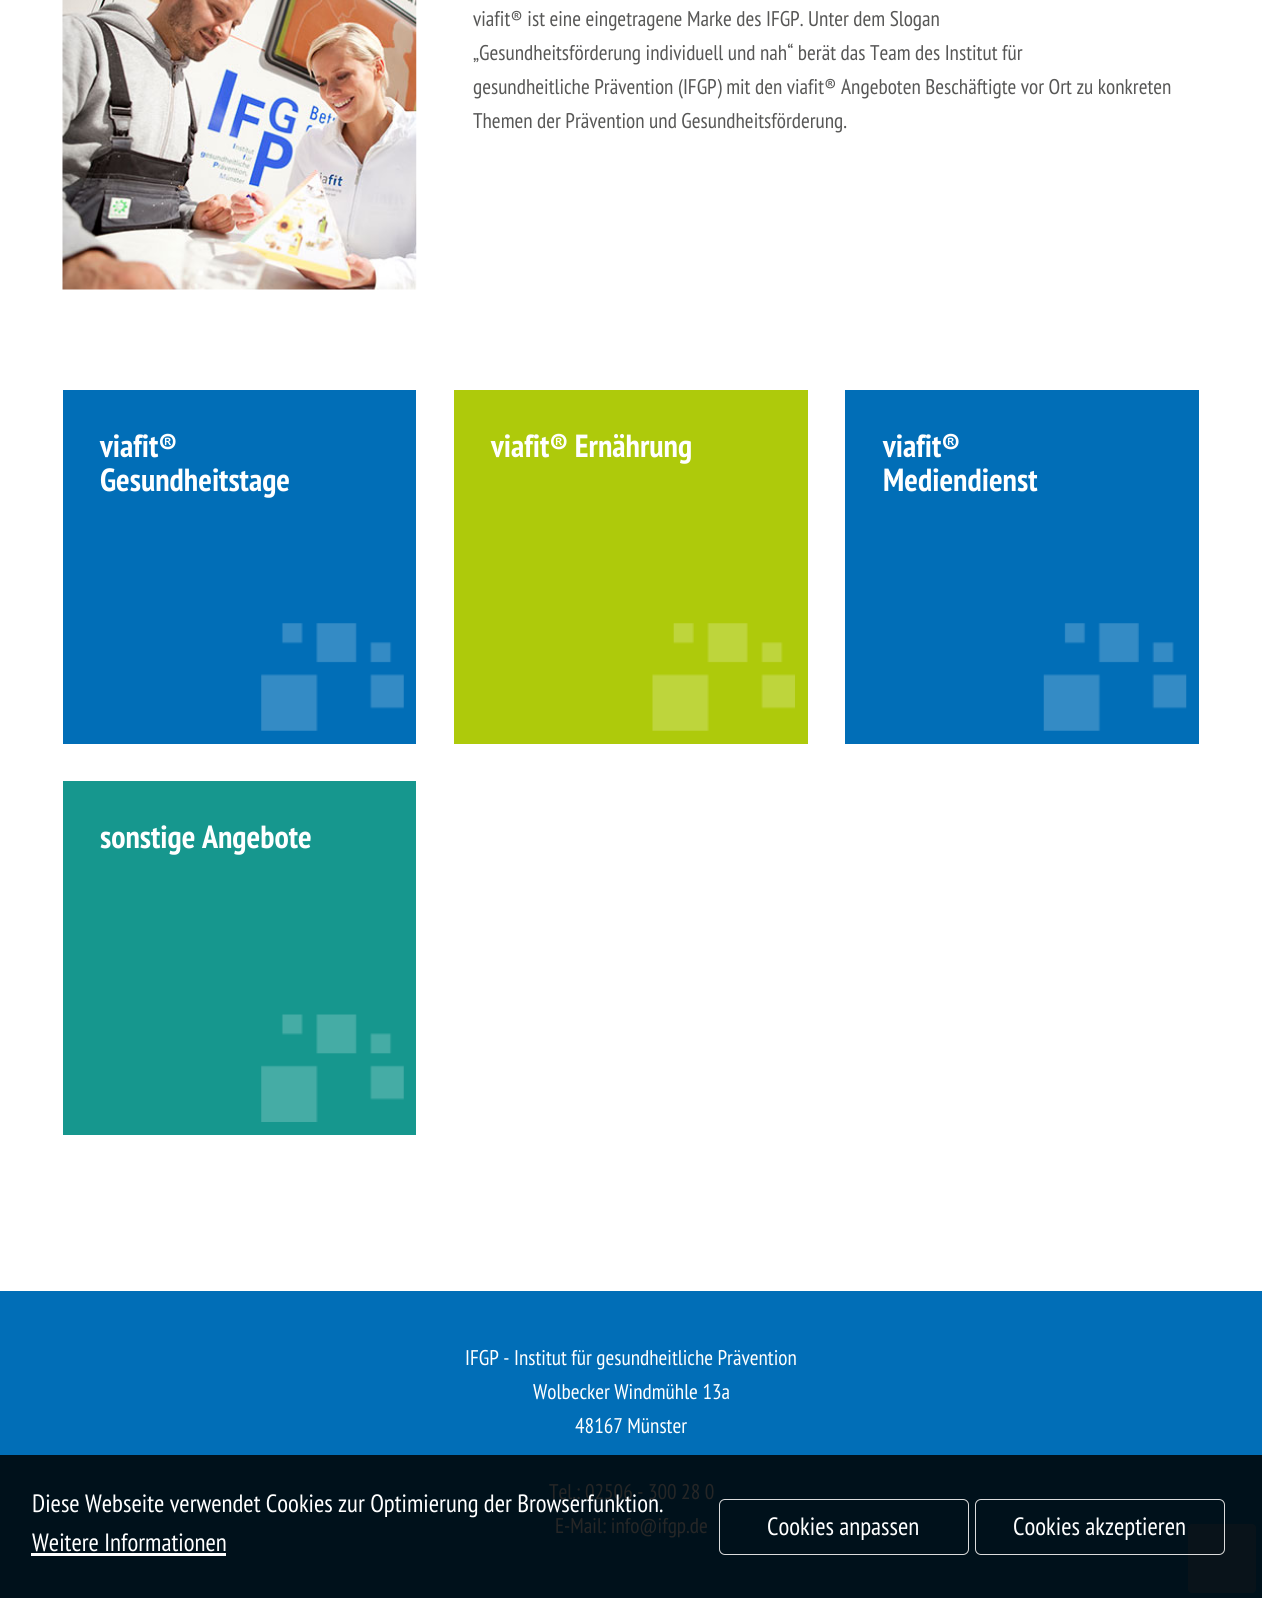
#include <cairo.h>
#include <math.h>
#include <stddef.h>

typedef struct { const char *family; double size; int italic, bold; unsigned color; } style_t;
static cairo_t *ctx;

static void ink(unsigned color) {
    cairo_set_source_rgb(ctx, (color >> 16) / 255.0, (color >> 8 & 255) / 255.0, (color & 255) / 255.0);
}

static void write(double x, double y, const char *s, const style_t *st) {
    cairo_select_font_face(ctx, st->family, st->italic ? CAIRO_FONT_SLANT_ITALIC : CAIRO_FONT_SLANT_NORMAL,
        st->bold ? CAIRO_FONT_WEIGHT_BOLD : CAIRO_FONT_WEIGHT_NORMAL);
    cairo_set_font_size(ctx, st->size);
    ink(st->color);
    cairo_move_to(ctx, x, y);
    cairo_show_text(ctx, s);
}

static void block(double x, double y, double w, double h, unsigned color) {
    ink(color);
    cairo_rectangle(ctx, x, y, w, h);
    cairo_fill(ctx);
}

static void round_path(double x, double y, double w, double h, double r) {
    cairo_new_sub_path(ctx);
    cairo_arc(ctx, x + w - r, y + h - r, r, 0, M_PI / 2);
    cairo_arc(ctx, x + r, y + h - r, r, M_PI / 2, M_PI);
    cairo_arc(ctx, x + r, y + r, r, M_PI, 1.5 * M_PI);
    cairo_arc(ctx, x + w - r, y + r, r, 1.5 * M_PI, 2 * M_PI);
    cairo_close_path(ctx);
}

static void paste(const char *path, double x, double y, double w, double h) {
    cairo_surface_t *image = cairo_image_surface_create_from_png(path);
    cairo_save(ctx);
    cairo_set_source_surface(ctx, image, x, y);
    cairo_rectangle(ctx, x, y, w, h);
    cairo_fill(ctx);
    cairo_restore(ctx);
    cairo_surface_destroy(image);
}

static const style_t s1 = {"PT Sans Narrow", 21.25, 0, 0, 0x575756};
static const style_t s2 = {"PT Sans Narrow", 32, 0, 1, 0xffffff};
static const style_t s3 = {"PT Sans Narrow", 21.25, 0, 0, 0xffffff};
static const style_t s4 = {"PT Sans Narrow", 21.25, 0, 0, 0x262626};
static const style_t s5 = {"PT Sans Narrow", 25, 0, 0, 0xffffff};

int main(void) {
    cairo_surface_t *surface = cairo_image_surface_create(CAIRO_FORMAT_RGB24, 1262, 1598);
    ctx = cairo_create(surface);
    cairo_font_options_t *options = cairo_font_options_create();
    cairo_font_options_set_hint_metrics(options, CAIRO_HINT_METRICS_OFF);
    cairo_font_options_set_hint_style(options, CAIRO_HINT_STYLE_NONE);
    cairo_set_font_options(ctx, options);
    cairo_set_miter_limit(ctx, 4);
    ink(0xffffff);
    cairo_paint(ctx);
    paste("pic1.png", 62, 0, 355, 290);
    write(473, 26, "viafit® ist eine eingetragene Marke des IFGP. Unter dem Slogan", &s1);
    write(473, 60, "„Gesundheitsförderung individuell und nah“ berät das Team des Institut für", &s1);
    write(473, 94, "gesundheitliche Prävention (IFGP) mit den viafit® Angeboten Beschäftigte vor Ort zu konkreten", &s1);
    write(473, 128, "Themen der Prävention und Gesundheitsförderung.", &s1);
    block(63, 390, 353, 354, 0x016eb7);
    write(100, 457, "viafit®", &s2);
    write(100, 491, "Gesundheitstage", &s2);
    paste("pic2.png", 261, 623, 143, 108);
    block(454, 390, 354, 354, 0xaeca0b);
    write(491, 457, "viafit® Ernährung", &s2);
    paste("pic3.png", 652, 623, 143, 108);
    block(845, 390, 354, 354, 0x016eb7);
    write(883, 457, "viafit®", &s2);
    write(883, 491, "Mediendienst", &s2);
    paste("pic4.png", 1043, 623, 144, 108);
    block(63, 781, 353, 354, 0x16978e);
    write(100, 848, "sonstige Angebote", &s2);
    paste("pic5.png", 261, 1014, 143, 108);
    block(0, 1291, 1262, 164, 0x016eb7);
    block(0, 1455, 1262, 143, 0x00111b);
    write(465, 1365, "IFGP - Institut für gesundheitliche Prävention", &s3);
    write(533, 1399, "Wolbecker Windmühle 13a", &s3);
    write(575, 1433, "48167 Münster", &s3);
    write(549, 1499, "Tel.: 02506 - 300 28 0", &s4);
    write(555, 1533, "E-Mail: info@ifgp.de", &s4);
    ink(0x09131a);
    round_path(1188, 1524, 68, 69, 4);
    cairo_fill(ctx);
    write(32, 1512, "Diese Webseite verwendet Cookies zur Optimierung der Browserfunktion.", &s5);
    write(32, 1551, "Weitere Informationen", &s5);
    block(31, 1553, 195, 3, 0xffffff);
    round_path(719.5, 1499.5, 249, 55, 5.5);
    ink(0xdcdcdc);
    cairo_set_line_width(ctx, 1);
    cairo_stroke(ctx);
    write(767, 1535, "Cookies anpassen", &s5);
    round_path(975.5, 1499.5, 249, 55, 5.5);
    ink(0xdcdcdc);
    cairo_stroke(ctx);
    write(1013, 1535, "Cookies akzeptieren", &s5);
    cairo_surface_write_to_png(surface, "screenshot.png");
    cairo_font_options_destroy(options);
    cairo_destroy(ctx);
    cairo_surface_destroy(surface);
    return 0;
}
